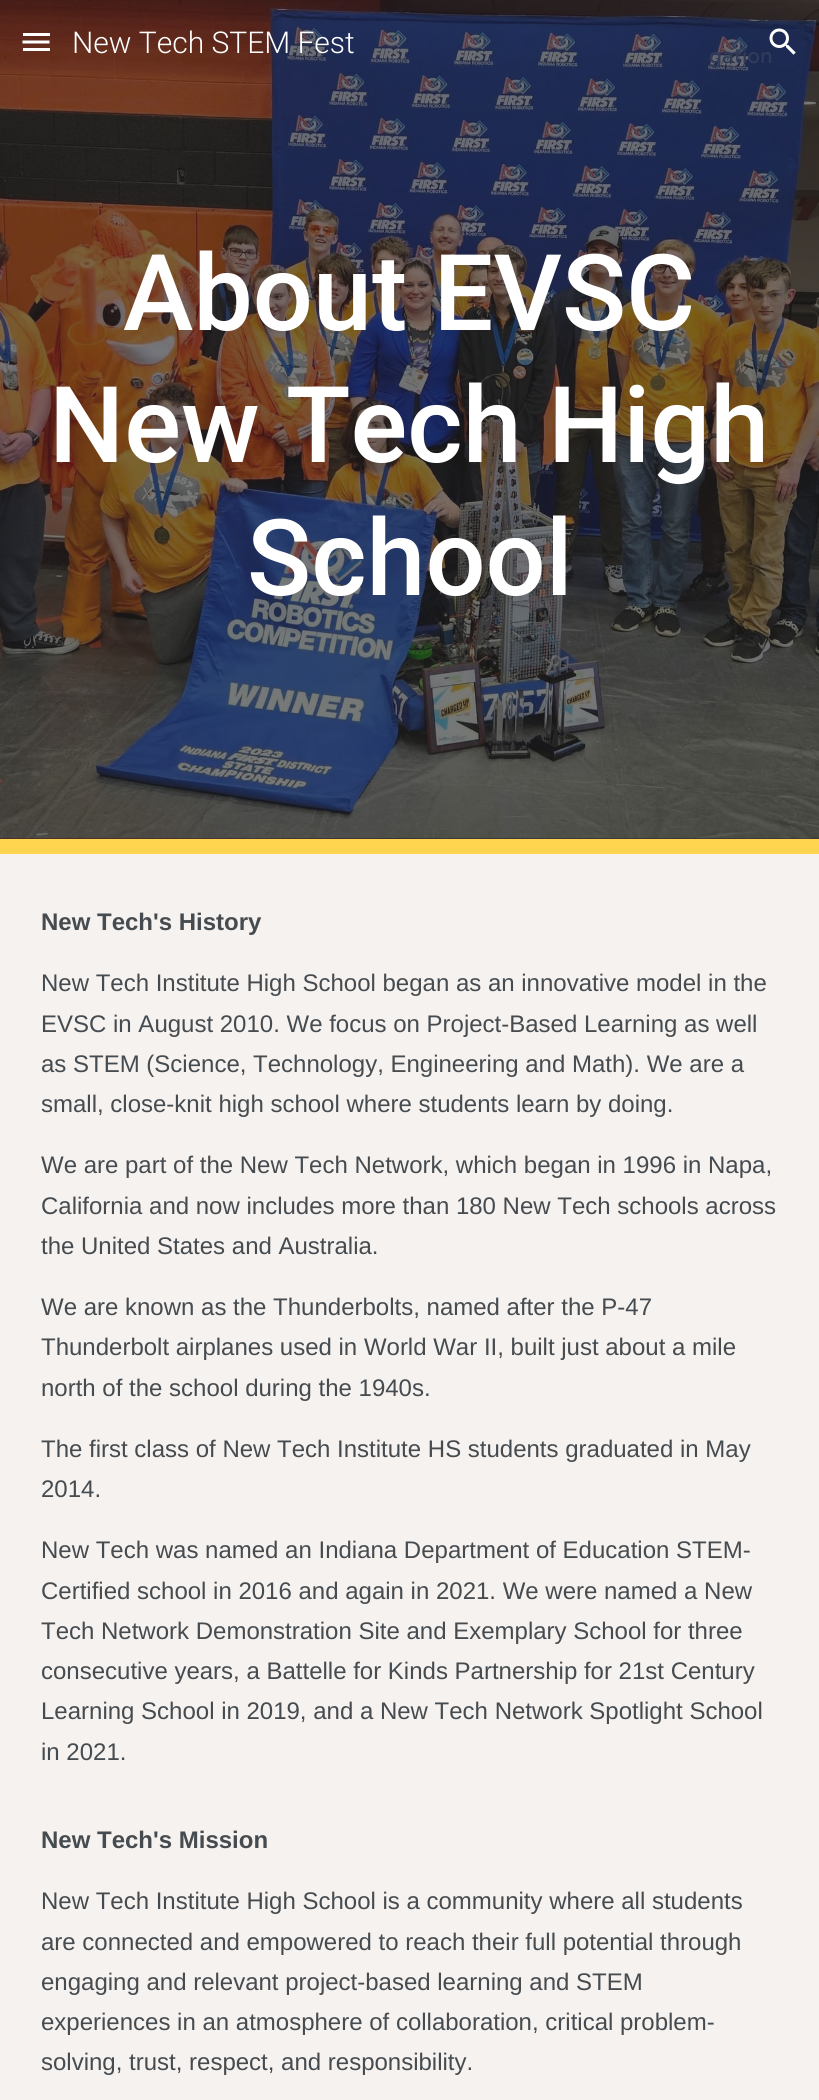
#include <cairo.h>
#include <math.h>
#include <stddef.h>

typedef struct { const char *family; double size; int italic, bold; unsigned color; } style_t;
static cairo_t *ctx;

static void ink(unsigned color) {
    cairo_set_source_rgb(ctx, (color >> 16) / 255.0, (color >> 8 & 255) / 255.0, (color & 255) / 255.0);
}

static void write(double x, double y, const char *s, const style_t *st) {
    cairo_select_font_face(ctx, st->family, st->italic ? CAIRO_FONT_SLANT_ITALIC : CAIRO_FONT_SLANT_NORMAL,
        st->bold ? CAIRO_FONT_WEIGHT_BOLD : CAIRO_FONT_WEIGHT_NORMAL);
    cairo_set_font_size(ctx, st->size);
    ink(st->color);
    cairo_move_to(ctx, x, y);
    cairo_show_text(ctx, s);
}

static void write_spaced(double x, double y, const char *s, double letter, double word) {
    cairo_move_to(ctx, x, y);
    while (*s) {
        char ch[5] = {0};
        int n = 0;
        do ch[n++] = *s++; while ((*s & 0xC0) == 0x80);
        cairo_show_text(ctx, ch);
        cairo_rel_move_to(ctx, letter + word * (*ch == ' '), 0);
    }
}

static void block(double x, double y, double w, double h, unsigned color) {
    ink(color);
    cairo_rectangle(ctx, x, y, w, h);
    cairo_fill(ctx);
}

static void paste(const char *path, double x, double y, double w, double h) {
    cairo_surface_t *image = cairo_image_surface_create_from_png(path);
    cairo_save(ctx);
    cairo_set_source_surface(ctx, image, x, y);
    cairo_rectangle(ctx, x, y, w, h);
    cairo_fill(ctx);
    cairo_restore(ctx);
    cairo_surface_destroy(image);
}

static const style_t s1 = {"Roboto Light", 30, 0, 0, 0xffffff};
static const style_t s2 = {"Roboto Medium", 106, 0, 0, 0xffffff};
static const style_t s3 = {"Liberation Sans", 24, 0, 1, 0x464b4f};
static const style_t s4 = {"Liberation Sans", 24, 0, 0, 0x464b4f};

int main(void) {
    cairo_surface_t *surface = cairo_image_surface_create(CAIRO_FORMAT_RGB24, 819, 2100);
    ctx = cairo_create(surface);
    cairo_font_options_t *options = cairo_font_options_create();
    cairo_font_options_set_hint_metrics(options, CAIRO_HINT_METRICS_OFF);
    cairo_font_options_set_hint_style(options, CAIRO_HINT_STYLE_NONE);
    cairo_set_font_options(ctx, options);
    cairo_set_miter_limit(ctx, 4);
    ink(0xf5f2f0);
    cairo_paint(ctx);
    paste("pic2.png", 0, 0, 819, 839);
    block(23, 33, 27, 3, 0xffffff);
    cairo_new_path(ctx);
    cairo_move_to(ctx, 22.5, 42);
    cairo_line_to(ctx, 49.5, 42);
    cairo_set_line_width(ctx, 3);
    cairo_stroke(ctx);
    block(23, 48, 27, 3, 0xffffff);
    write(72, 53, "New Tech STEM Fest", &s1);
    paste("pic1.png", 769, 28, 27, 27);
    block(0, 839, 819, 15, 0xffd54f);
    write(123, 330, "About EVSC", &s2);
    write(49, 462, "New Tech High", &s2);
    write(247, 595, "School", &s2);
    write(41, 930, "New Tech's History", &s3);
    write(41, 991, "New Tech Institute High School began as an innovative model in the", &s4);
    write(41, 1032, "EVSC in August 2010. We focus on Project-Based Learning as well", &s4);
    write(41, 1072, "as STEM (Science, Technology, Engineering and Math). We are a", &s4);
    write(41, 1112, "small, close-knit high school where students learn by doing.", &s4);
    write(41, 1173, "We are part of the New Tech Network, which began in 1996 in Napa,", &s4);
    write(41, 1214, "California and now includes more than 180 New Tech schools across", &s4);
    write(41, 1254, "the United States and Australia.", &s4);
    write(41, 1315, "We are known as the Thunderbolts, named after the P-47", &s4);
    write(41, 1355, "Thunderbolt airplanes used in World War II, built just about a mile", &s4);
    write(41, 1396, "north of the school during the 1940s.", &s4);
    write(41, 1457, "The first class of New Tech Institute HS students graduated in May", &s4);
    write(41, 1497, "2014.", &s4);
    write(41, 1558, "New Tech was named an Indiana Department of Education STEM-", &s4);
    write(41, 1599, "Certified school in 2016 and again in 2021. We were named a New", &s4);
    write(41, 1639, "Tech Network Demonstration Site and Exemplary School for three", &s4);
    write(41, 1679, "consecutive years, a Battelle for Kinds Partnership for 21st Century", &s4);
    write(41, 1719, "Learning School in 2019, and a New Tech Network Spotlight School", &s4);
    write(41, 1760, "in 2021.", &s4);
    write(41, 1848, "New Tech's Mission", &s3);
    write(41, 1909, "New Tech Institute High School is a community where all students", &s4);
    write(41, 1950, "are connected and empowered to reach their full potential through", &s4);
    write(41, 1990, "engaging and relevant project-based learning and STEM", &s4);
    write(41, 2030, "experiences in an atmosphere of collaboration, critical problem-", &s4);
    write(41, 2070, "solving, trust, respect, and responsibility.", &s4);
    cairo_select_font_face(ctx, "Google Sans Medium", CAIRO_FONT_SLANT_NORMAL, CAIRO_FONT_WEIGHT_NORMAL);
    cairo_set_font_size(ctx, 21);
    ink(0x303a59);
    write_spaced(709, 63, "gation", 0.25, 0);
    cairo_surface_write_to_png(surface, "screenshot.png");
    cairo_font_options_destroy(options);
    cairo_destroy(ctx);
    cairo_surface_destroy(surface);
    return 0;
}
